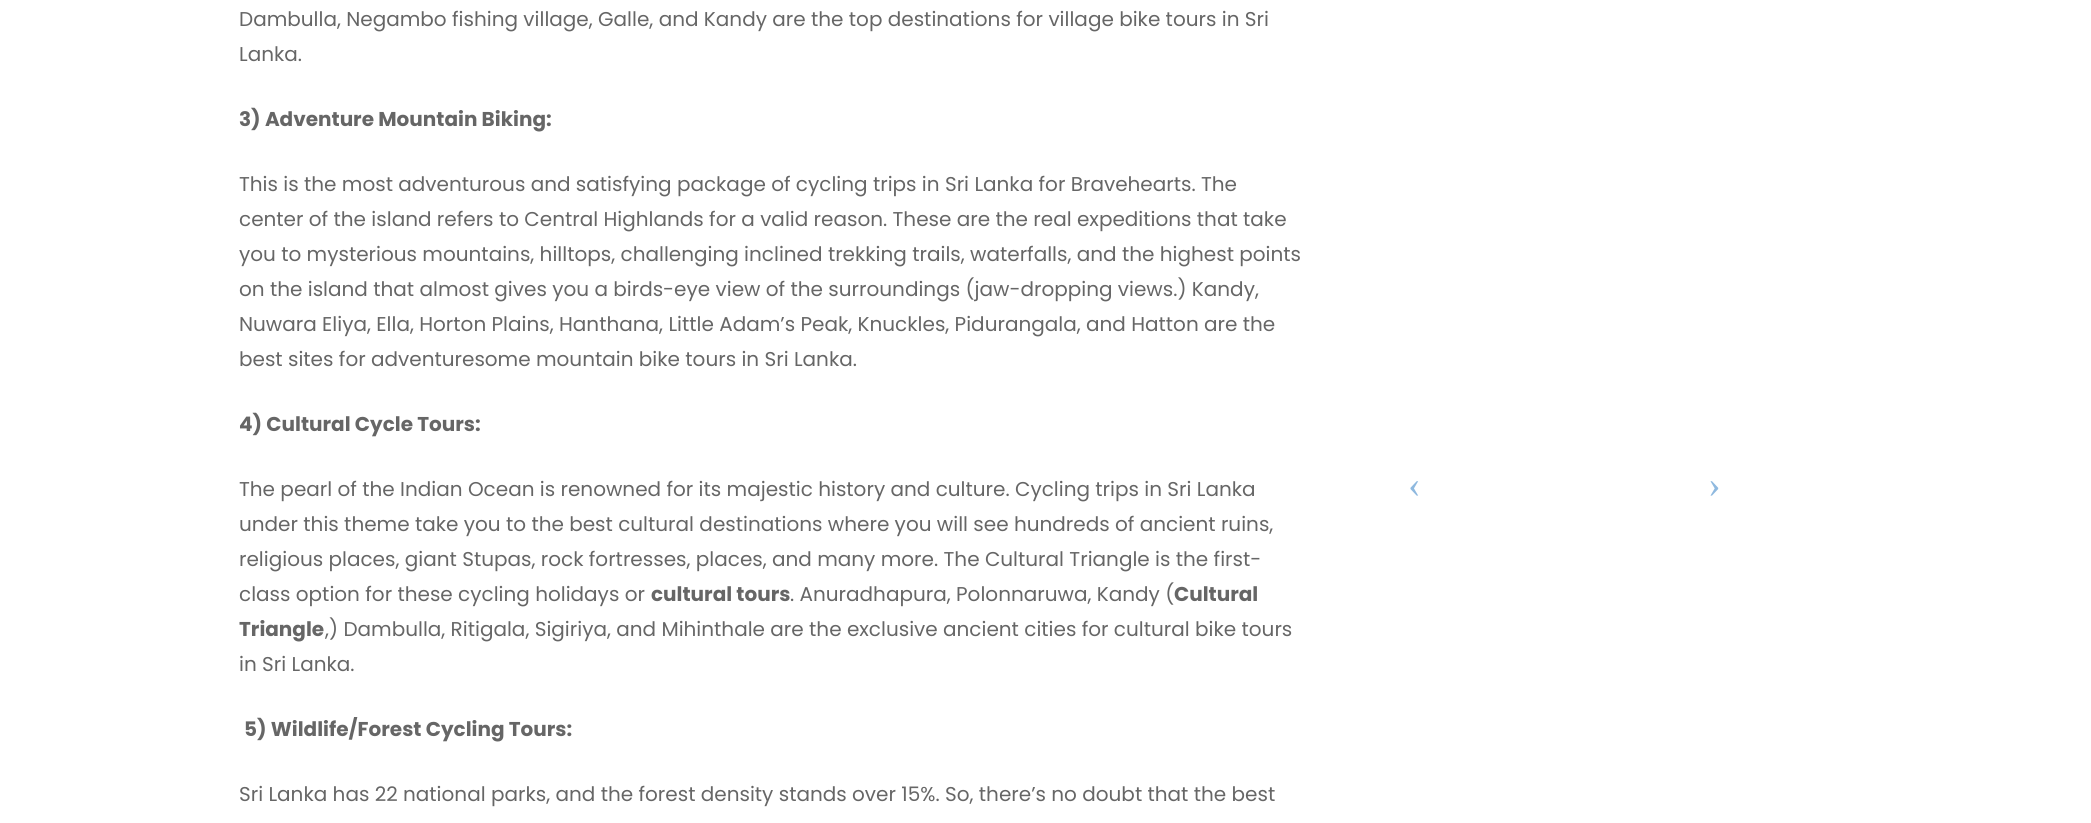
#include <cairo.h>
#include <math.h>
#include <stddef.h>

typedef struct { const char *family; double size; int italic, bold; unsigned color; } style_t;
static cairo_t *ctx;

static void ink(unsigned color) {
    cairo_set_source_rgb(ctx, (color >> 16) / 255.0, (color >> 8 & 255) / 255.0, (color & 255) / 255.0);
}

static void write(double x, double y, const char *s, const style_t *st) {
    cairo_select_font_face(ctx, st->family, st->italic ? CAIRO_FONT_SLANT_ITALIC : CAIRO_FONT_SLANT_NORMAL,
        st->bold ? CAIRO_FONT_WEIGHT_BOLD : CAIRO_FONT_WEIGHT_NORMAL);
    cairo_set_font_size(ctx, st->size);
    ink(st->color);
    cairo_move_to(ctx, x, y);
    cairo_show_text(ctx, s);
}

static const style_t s1 = {"Poppins", 20, 0, 0, 0x666666};
static const style_t s2 = {"Poppins", 20, 0, 1, 0x666666};
static const style_t s3 = {"Liberation Serif", 38, 0, 0, 0x8fb9df};

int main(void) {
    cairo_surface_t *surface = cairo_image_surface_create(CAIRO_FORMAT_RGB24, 2091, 823);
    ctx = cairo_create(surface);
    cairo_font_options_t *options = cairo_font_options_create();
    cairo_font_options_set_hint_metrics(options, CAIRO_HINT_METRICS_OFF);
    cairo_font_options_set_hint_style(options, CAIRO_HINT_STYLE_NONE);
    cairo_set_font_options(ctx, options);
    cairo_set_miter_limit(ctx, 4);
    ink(0xffffff);
    cairo_paint(ctx);
    write(239, 26, "Dambulla, Negambo fishing village, Galle, and Kandy are the top destinations for village bike tours in Sri", &s1);
    write(239, 61, "Lanka.", &s1);
    write(239, 126, "3) Adventure Mountain Biking:", &s2);
    write(239, 191, "This is the most adventurous and satisfying package of cycling trips in Sri Lanka for Bravehearts. The", &s1);
    write(239, 226, "center of the island refers to Central Highlands for a valid reason. These are the real expeditions that take", &s1);
    write(239, 261, "you to mysterious mountains, hilltops, challenging inclined trekking trails, waterfalls, and the highest points", &s1);
    write(239, 296, "on the island that almost gives you a birds-eye view of the surroundings (jaw-dropping views.) Kandy,", &s1);
    write(239, 331, "Nuwara Eliya, Ella, Horton Plains, Hanthana, Little Adam’s Peak, Knuckles, Pidurangala, and Hatton are the", &s1);
    write(239, 366, "best sites for adventuresome mountain bike tours in Sri Lanka.", &s1);
    write(239, 431, "4) Cultural Cycle Tours:", &s2);
    write(239, 496, "The pearl of the Indian Ocean is renowned for its majestic history and culture. Cycling trips in Sri Lanka", &s1);
    write(239, 531, "under this theme take you to the best cultural destinations where you will see hundreds of ancient ruins,", &s1);
    write(239, 566, "religious places, giant Stupas, rock fortresses, places, and many more. The Cultural Triangle is the first-", &s1);
    write(239, 601, "class option for these cycling holidays or", &s1);
    write(651, 601, "cultural tours", &s2);
    write(790, 601, ". Anuradhapura, Polonnaruwa, Kandy (", &s1);
    write(1174, 601, "Cultural", &s2);
    write(239, 636, "Triangle", &s2);
    write(325, 636, ",) Dambulla, Ritigala, Sigiriya, and Mihinthale are the exclusive ancient cities for cultural bike tours", &s1);
    write(239, 671, "in Sri Lanka.", &s1);
    write(244, 736, "5) Wildlife/Forest Cycling Tours:", &s2);
    write(239, 801, "Sri Lanka has 22 national parks, and the forest density stands over 15%. So, there’s no doubt that the best", &s1);
    write(1408, 497, "‹", &s3);
    write(1708, 497, "›", &s3);
    cairo_surface_write_to_png(surface, "screenshot.png");
    cairo_font_options_destroy(options);
    cairo_destroy(ctx);
    cairo_surface_destroy(surface);
    return 0;
}
